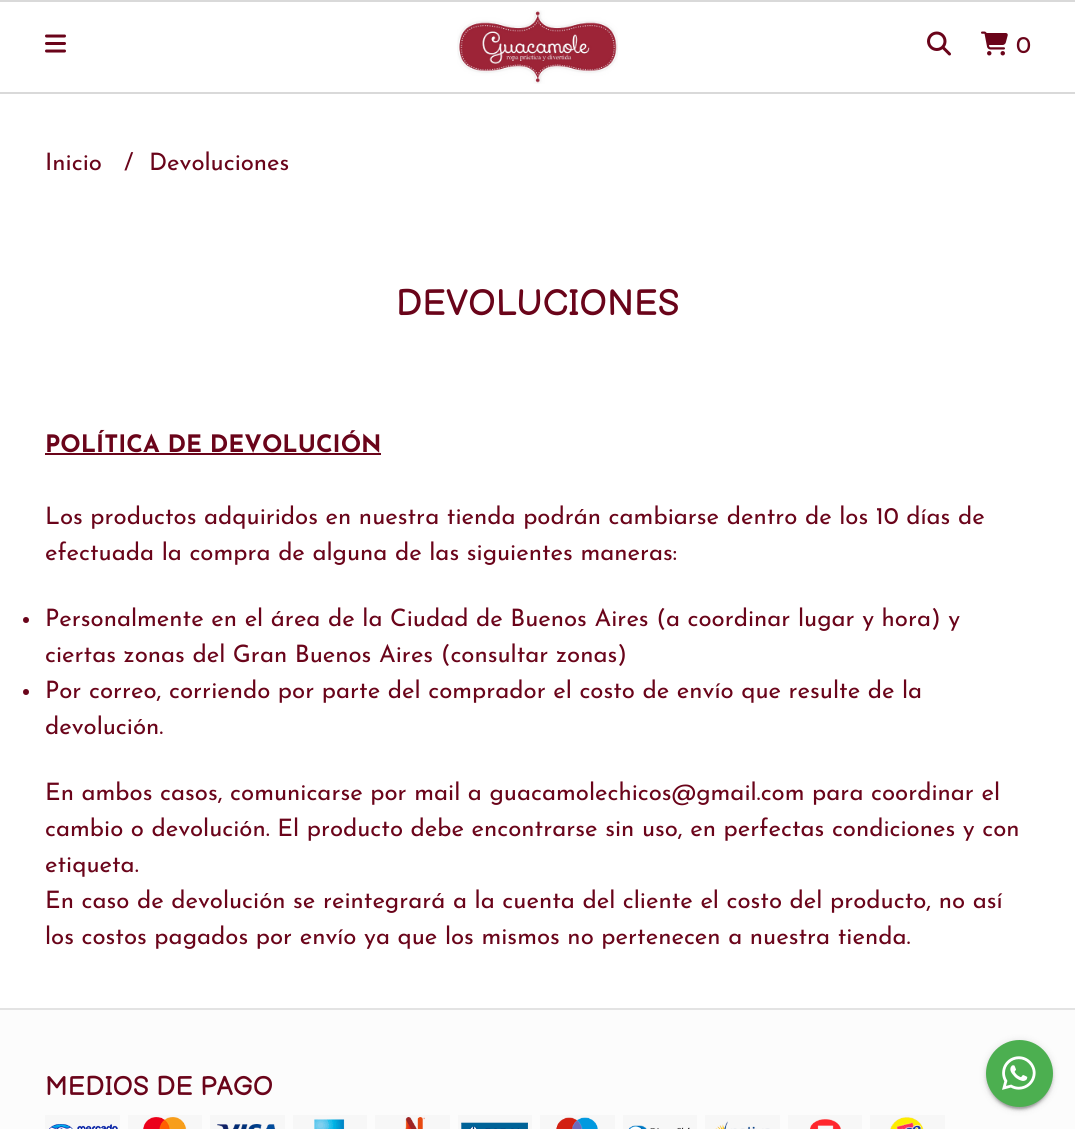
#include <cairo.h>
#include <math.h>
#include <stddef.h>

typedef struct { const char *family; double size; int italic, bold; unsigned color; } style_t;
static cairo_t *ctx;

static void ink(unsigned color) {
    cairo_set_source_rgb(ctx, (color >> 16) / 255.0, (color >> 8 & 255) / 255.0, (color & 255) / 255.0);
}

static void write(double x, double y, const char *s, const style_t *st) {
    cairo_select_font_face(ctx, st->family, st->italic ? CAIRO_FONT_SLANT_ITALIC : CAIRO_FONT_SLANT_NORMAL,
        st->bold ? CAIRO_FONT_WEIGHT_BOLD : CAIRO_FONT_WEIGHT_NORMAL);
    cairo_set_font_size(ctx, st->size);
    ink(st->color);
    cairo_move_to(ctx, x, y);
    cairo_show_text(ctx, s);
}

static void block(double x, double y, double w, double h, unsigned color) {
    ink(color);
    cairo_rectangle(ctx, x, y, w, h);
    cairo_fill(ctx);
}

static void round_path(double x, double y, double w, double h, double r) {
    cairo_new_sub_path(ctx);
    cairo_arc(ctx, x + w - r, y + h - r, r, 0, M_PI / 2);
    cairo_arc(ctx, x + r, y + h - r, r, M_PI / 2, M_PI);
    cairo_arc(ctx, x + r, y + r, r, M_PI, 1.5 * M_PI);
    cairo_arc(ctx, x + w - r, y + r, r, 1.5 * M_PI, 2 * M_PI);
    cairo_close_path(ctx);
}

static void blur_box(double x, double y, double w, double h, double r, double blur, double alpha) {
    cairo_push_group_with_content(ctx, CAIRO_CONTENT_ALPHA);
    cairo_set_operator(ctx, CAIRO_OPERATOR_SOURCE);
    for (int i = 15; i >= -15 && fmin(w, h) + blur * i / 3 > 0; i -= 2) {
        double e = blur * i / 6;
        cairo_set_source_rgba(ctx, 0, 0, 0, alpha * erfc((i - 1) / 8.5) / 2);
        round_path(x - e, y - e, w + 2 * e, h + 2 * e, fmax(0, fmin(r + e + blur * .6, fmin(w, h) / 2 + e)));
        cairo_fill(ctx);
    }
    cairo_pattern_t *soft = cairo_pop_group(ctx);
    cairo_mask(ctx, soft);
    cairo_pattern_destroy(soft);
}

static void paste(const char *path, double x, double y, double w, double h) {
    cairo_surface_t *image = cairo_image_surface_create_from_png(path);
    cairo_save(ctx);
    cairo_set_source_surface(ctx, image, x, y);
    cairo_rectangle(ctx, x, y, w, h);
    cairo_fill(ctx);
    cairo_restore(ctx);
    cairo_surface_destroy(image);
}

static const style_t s1 = {"Josefin Sans", 24, 0, 0, 0x6a041a};
static const style_t s2 = {"Balsamiq Sans", 36, 0, 0, 0x6a041a};
static const style_t s3 = {"Josefin Sans", 24, 0, 1, 0x6a041a};
static const style_t s4 = {"Balsamiq Sans", 26.5, 0, 0, 0x6a041a};

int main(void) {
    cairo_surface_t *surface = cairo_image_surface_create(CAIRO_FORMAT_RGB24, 1075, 1129);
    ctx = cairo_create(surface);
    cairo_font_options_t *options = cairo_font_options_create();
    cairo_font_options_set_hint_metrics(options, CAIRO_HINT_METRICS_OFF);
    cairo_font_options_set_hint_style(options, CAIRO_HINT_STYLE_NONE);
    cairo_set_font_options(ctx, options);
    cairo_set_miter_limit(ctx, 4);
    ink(0xffffff);
    cairo_paint(ctx);
    block(0, 0, 1075, 2, 0xd9d9d9);
    block(0, 92, 1075, 2, 0xd9d9d9);
    paste("pic1.png", 45, 34, 21, 19);
    paste("pic2.png", 457, 10, 161, 74);
    paste("pic3.png", 927, 31, 24, 25);
    paste("pic4.png", 981, 31, 27, 25);
    write(1016, 53, "0", &s1);
    write(45, 170, "Inicio", &s1);
    write(124, 170, "/", &s1);
    write(149, 170, "Devoluciones", &s1);
    write(396, 315, "DEVOLUCIONES", &s2);
    write(45, 452, "POLÍTICA DE DEVOLUCIÓN", &s3);
    block(45, 453, 336, 2, 0x6a041a);
    write(45, 524, "Los productos adquiridos en nuestra tienda podrán cambiarse dentro de los 10 días de", &s1);
    write(45, 560, "efectuada la compra de alguna de las siguientes maneras:", &s1);
    cairo_new_path(ctx);
    cairo_arc(ctx, 26, 620, 3, 0, 2 * M_PI);
    cairo_fill(ctx);
    write(45, 626, "Personalmente en el área de la Ciudad de Buenos Aires (a coordinar lugar y hora) y", &s1);
    write(45, 662, "ciertas zonas del Gran Buenos Aires (consultar zonas)", &s1);
    cairo_new_path(ctx);
    cairo_arc(ctx, 26, 692, 3, 0, 2 * M_PI);
    cairo_fill(ctx);
    write(45, 698, "Por correo, corriendo por parte del comprador el costo de envío que resulte de la", &s1);
    write(45, 734, "devolución.", &s1);
    write(45, 800, "En ambos casos, comunicarse por mail a guacamolechicos@gmail.com para coordinar el", &s1);
    write(45, 836, "cambio o devolución. El producto debe encontrarse sin uso, en perfectas condiciones y con", &s1);
    write(45, 872, "etiqueta.", &s1);
    write(45, 908, "En caso de devolución se reintegrará a la cuenta del cliente el costo del producto, no así", &s1);
    write(45, 944, "los costos pagados por envío ya que los mismos no pertenecen a nuestra tienda.", &s1);
    block(0, 1010, 1075, 119, 0xfcfcfc);
    block(0, 1008, 1075, 2, 0xe3e3e3);
    write(45, 1095, "MEDIOS DE PAGO", &s4);
    paste("pic5.png", 45, 1115, 75, 14);
    paste("pic6.png", 128, 1115, 74, 14);
    paste("pic7.png", 210, 1115, 75, 14);
    paste("pic8.png", 293, 1115, 74, 14);
    paste("pic9.png", 375, 1115, 75, 14);
    paste("pic10.png", 458, 1115, 74, 14);
    paste("pic11.png", 540, 1115, 75, 14);
    paste("pic12.png", 623, 1115, 74, 14);
    paste("pic13.png", 705, 1115, 75, 14);
    paste("pic14.png", 788, 1115, 74, 14);
    paste("pic15.png", 870, 1115, 75, 14);
    ink(0x000000);
    blur_box(989, 1047, 61, 62, 30.5, 1, 0.2);
    blur_box(986, 1041, 67, 68, 33.5, 4, 0.12);
    blur_box(986, 1043, 67, 67, 33.5, 1.5, 0.14);
    ink(0x4caf50);
    cairo_arc(ctx, 1019.5, 1073.5, 33.5, 0, 2 * M_PI);
    cairo_fill(ctx);
    paste("pic16.png", 1002, 1056, 34, 34);
    cairo_surface_write_to_png(surface, "screenshot.png");
    cairo_font_options_destroy(options);
    cairo_destroy(ctx);
    cairo_surface_destroy(surface);
    return 0;
}
